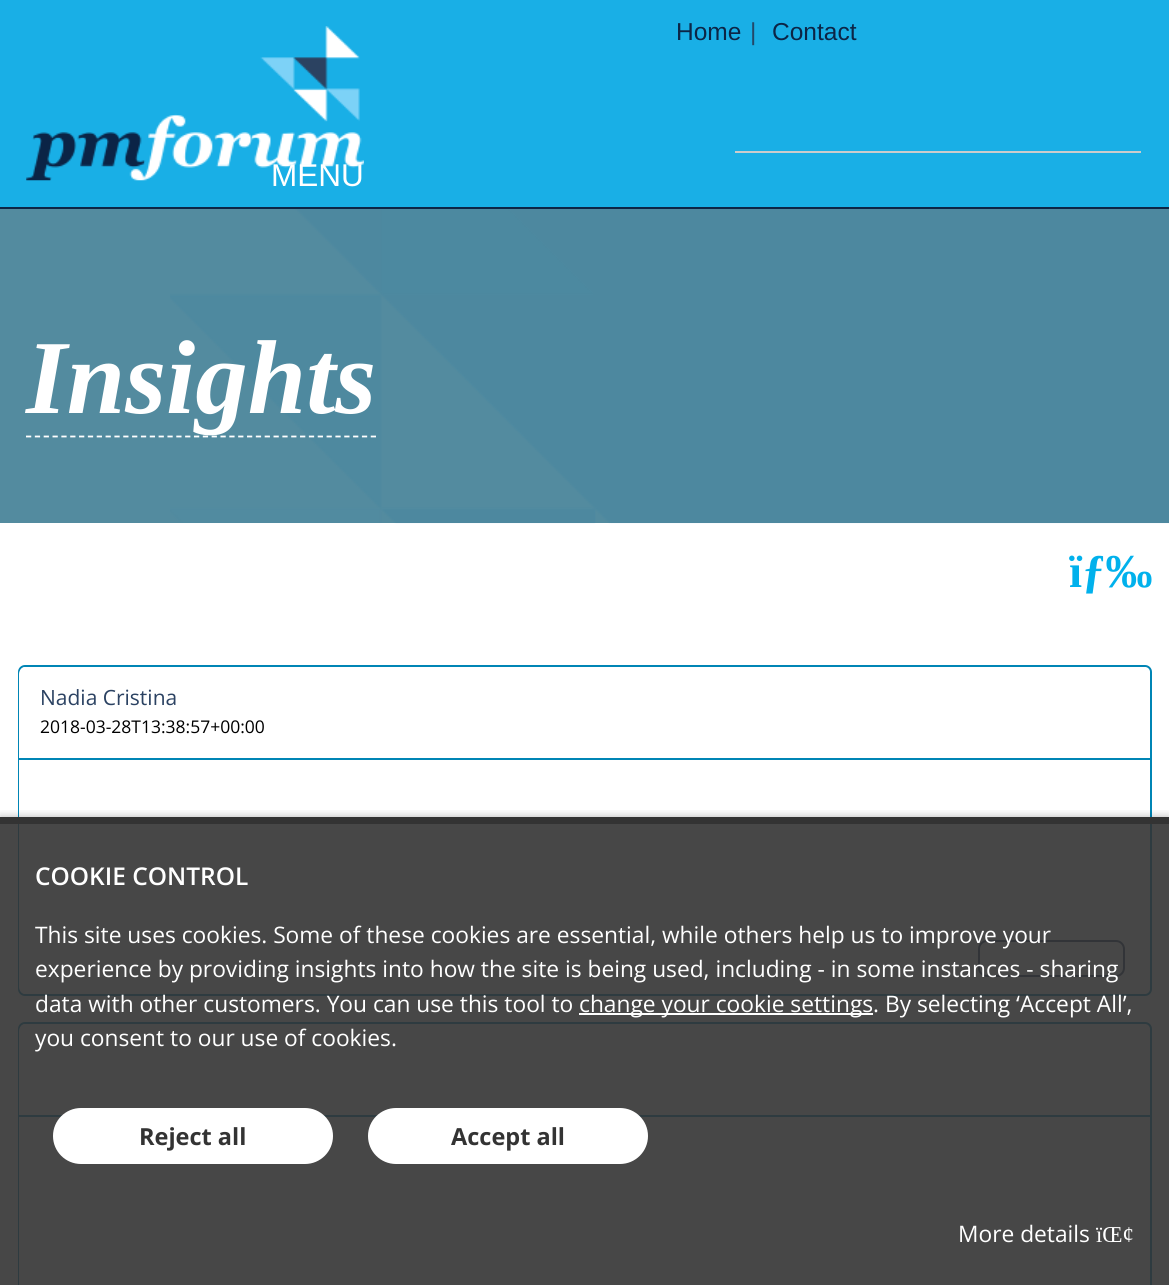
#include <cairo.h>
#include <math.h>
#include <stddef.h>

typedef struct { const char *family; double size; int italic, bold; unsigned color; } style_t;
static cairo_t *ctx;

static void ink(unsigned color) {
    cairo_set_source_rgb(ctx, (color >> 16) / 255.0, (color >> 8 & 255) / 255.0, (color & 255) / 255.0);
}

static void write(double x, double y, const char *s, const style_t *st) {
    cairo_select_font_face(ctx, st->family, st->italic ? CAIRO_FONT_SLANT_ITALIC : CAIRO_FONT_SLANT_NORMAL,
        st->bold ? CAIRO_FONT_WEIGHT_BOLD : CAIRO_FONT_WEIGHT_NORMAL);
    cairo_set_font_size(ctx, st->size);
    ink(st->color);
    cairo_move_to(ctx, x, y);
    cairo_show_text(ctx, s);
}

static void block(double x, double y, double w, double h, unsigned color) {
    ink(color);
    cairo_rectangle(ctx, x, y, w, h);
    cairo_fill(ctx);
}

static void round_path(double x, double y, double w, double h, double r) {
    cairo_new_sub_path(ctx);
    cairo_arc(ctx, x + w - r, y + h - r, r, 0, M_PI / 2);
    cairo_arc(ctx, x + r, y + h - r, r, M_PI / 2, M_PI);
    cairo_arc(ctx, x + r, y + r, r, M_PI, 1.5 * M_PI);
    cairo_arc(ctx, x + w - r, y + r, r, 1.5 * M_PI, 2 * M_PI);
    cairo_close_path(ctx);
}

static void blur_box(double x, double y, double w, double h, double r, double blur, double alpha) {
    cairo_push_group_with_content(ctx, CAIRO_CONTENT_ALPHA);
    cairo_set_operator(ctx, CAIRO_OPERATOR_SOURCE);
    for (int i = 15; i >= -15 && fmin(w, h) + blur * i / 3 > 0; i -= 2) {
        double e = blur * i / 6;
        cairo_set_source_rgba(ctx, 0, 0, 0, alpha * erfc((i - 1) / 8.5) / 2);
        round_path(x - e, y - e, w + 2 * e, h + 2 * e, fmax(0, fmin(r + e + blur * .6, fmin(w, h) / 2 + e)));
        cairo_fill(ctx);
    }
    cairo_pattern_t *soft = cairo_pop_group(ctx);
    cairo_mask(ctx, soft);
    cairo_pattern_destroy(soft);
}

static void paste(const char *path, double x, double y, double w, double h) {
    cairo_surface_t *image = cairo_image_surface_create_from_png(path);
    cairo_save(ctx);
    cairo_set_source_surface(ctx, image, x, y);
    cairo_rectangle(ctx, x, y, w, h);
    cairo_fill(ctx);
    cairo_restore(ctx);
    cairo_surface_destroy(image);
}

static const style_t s1 = {"Liberation Sans", 24.5, 0, 0, 0x0c2546};
static const style_t s2 = {"Liberation Sans", 24.5, 0, 0, 0x234869};
static const style_t s3 = {"Liberation Sans", 31.5, 0, 0, 0xffffff};
static const style_t s4 = {"Liberation Serif", 105, 1, 1, 0xffffff};
static const style_t s5 = {"Liberation Serif", 47, 0, 1, 0x01b1ec};
static const style_t s6 = {"Open Sans", 21, 0, 0, 0x2b4262};
static const style_t s7 = {"Open Sans", 17.5, 0, 0, 0x000000};
static const style_t s8 = {"Open Sans SemiBold", 24.5, 0, 0, 0xffffff};
static const style_t s9 = {"Open Sans", 22.75, 0, 0, 0xffffff};
static const style_t s10 = {"Open Sans", 23.5, 0, 1, 0x333333};
static const style_t s11 = {"Liberation Serif", 22.75, 0, 0, 0xffffff};

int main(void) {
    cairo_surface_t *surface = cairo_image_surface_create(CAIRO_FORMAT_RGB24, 1169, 1285);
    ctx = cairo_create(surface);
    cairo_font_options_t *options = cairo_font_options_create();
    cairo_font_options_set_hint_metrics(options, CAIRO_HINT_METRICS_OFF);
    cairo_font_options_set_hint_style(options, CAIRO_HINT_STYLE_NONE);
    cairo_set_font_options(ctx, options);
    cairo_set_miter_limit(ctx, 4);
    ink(0xffffff);
    cairo_paint(ctx);
    block(0, 0, 1169, 207, 0x19afe6);
    write(676, 40, "Home", &s1);
    write(750, 40, "|", &s2);
    write(772, 40, "Contact", &s1);
    block(735, 151, 406, 2, 0xcccccc);
    write(271, 186, "MENU", &s3);
    paste("pic1.png", 26, 26, 338, 155);
    block(0, 207, 1169, 2, 0x0c2546);
    block(0, 209, 1169, 314, 0x538b9f);
    paste("pic2.png", 170, 209, 999, 315);
    cairo_new_path(ctx);
    cairo_move_to(ctx, 26, 436.5);
    cairo_line_to(ctx, 376, 436.5);
    ink(0xffffff);
    cairo_set_line_width(ctx, 1.8);
    cairo_set_dash(ctx, (double[]){5.25, 3.59}, 2, 0);
    cairo_stroke(ctx);
    write(26, 413, "Insights", &s4);
    write(1069, 587, "ïƒ‰", &s5);
    round_path(19, 666, 1132, 329, 6);
    ink(0x0085b5);
    cairo_set_line_width(ctx, 2);
    cairo_set_dash(ctx, NULL, 0, 0);
    cairo_stroke(ctx);
    ink(0xffffff);
    round_path(19, 667, 1131, 327, 7);
    cairo_fill(ctx);
    block(19, 758, 1131, 2, 0x0085b5);
    write(40, 705, "Nadia Cristina", &s6);
    write(40, 733, "2018-03-28T13:38:57+00:00", &s7);
    round_path(979, 941, 145, 35, 8);
    ink(0x2b4262);
    cairo_stroke(ctx);
    round_path(19, 1023, 1132, 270, 6);
    ink(0x0085b5);
    cairo_stroke(ctx);
    ink(0xffffff);
    round_path(19, 1024, 1131, 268, 7);
    cairo_fill(ctx);
    block(19, 1115, 1131, 2, 0x0085b5);
    cairo_save(ctx);
    cairo_rectangle(ctx, 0, 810, 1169, 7);
    cairo_clip(ctx);
    ink(0x000000);
    blur_box(0, 817, 1169, 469, 0, 4.5, 0.3);
    cairo_restore(ctx);
    cairo_set_source_rgba(ctx, 0.2, 0.2, 0.2, 0.9);
    cairo_rectangle(ctx, 0, 824, 1169, 461);
    cairo_fill(ctx);
    block(0, 817, 1169, 7, 0x333333);
    write(35, 885, "COOKIE CONTROL", &s8);
    write(35, 943, "This site uses cookies. Some of these cookies are essential, while others help us to improve your", &s9);
    write(35, 977, "experience by providing insights into how the site is being used, including - in some instances - sharing", &s9);
    write(35, 1012, "data with other customers. You can use this tool to", &s9);
    block(579, 1013, 294, 2, 0xffffff);
    write(579, 1012, "change your cookie settings. By selecting ‘Accept All’,", &s9);
    write(35, 1046, "you consent to our use of cookies.", &s9);
    round_path(53, 1108, 280, 56, 28);
    cairo_fill(ctx);
    write(139, 1145, "Reject all", &s10);
    ink(0xffffff);
    round_path(368, 1108, 280, 56, 28);
    cairo_fill(ctx);
    write(451, 1145, "Accept all", &s10);
    write(958, 1242, "More details", &s9);
    write(1096, 1242, "ïŒ¢", &s11);
    cairo_surface_write_to_png(surface, "screenshot.png");
    cairo_font_options_destroy(options);
    cairo_destroy(ctx);
    cairo_surface_destroy(surface);
    return 0;
}
